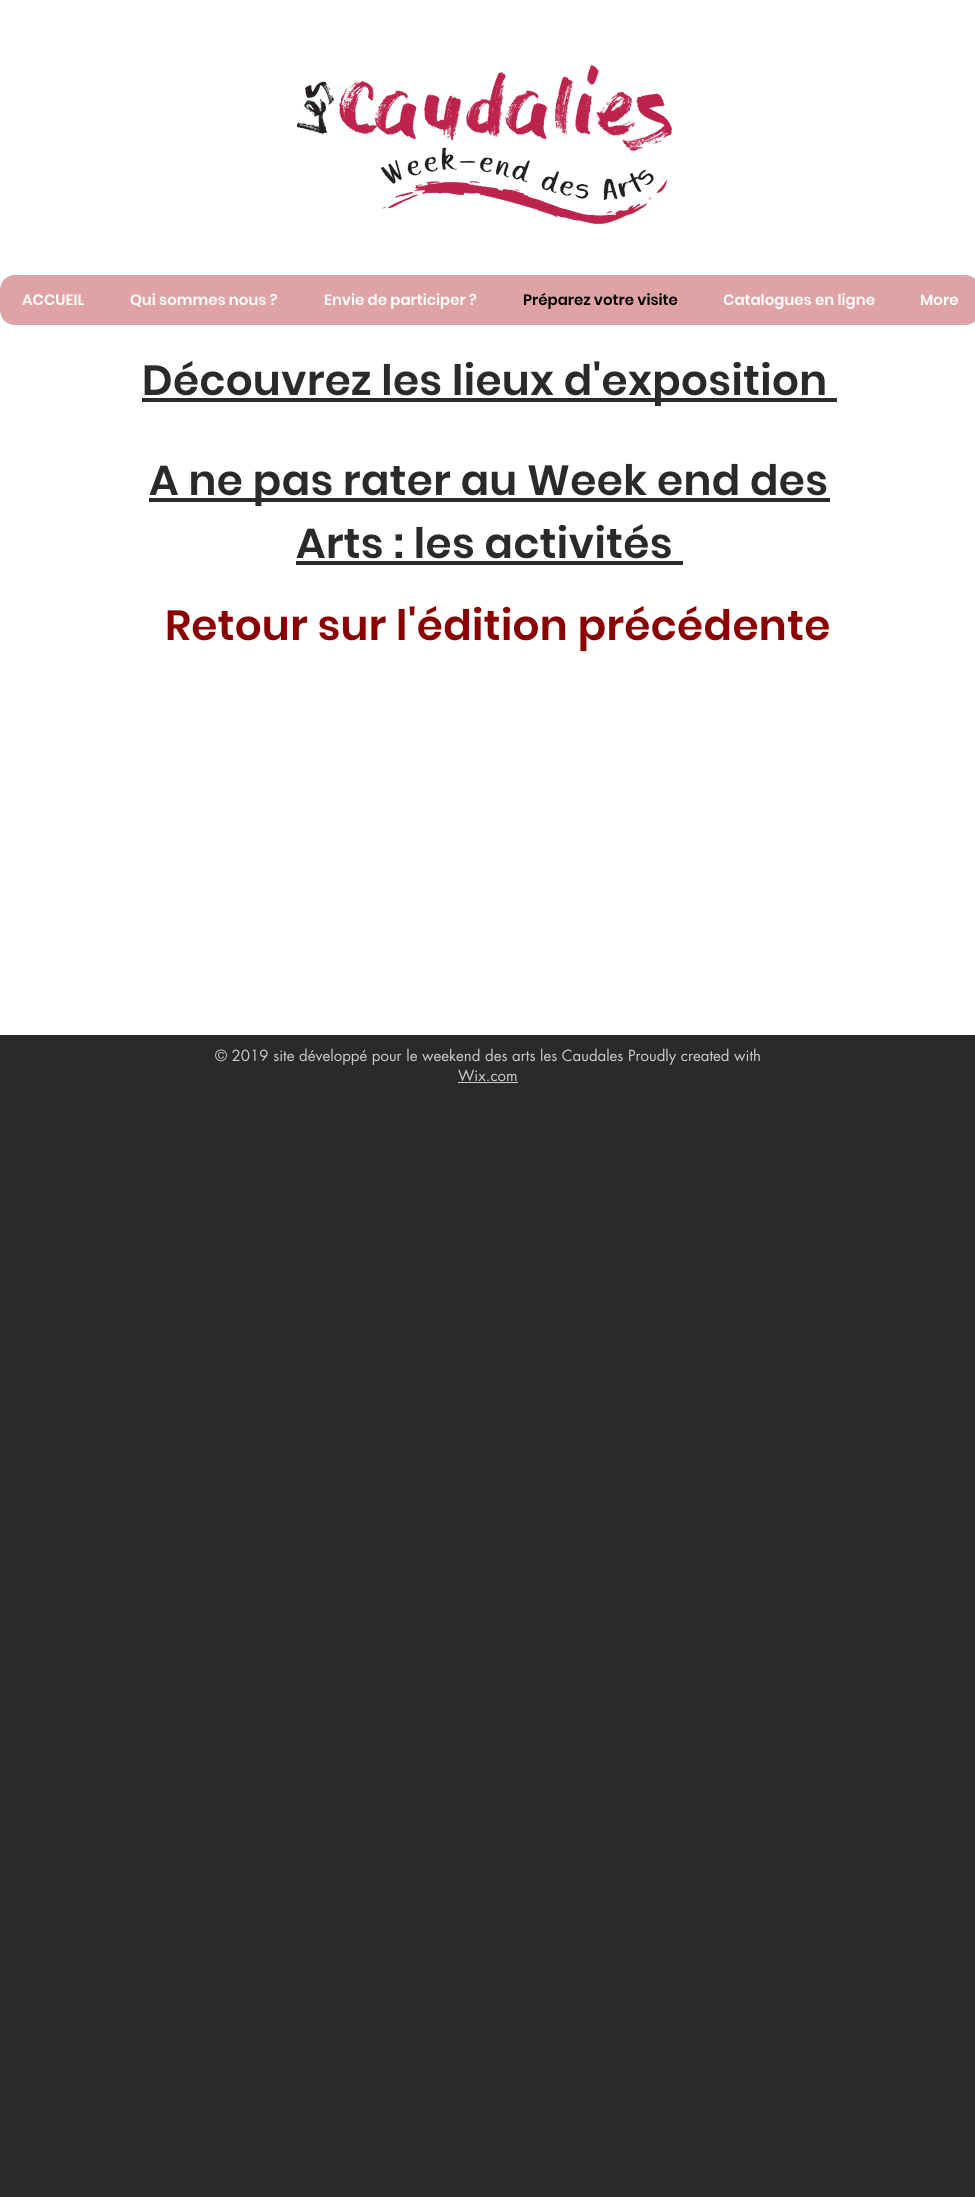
#include <cairo.h>
#include <math.h>
#include <stddef.h>

typedef struct { const char *family; double size; int italic, bold; unsigned color; } style_t;
static cairo_t *ctx;

static void ink(unsigned color) {
    cairo_set_source_rgb(ctx, (color >> 16) / 255.0, (color >> 8 & 255) / 255.0, (color & 255) / 255.0);
}

static void write(double x, double y, const char *s, const style_t *st) {
    cairo_select_font_face(ctx, st->family, st->italic ? CAIRO_FONT_SLANT_ITALIC : CAIRO_FONT_SLANT_NORMAL,
        st->bold ? CAIRO_FONT_WEIGHT_BOLD : CAIRO_FONT_WEIGHT_NORMAL);
    cairo_set_font_size(ctx, st->size);
    ink(st->color);
    cairo_move_to(ctx, x, y);
    cairo_show_text(ctx, s);
}

static void write_spaced(double x, double y, const char *s, double letter, double word) {
    cairo_move_to(ctx, x, y);
    while (*s) {
        char ch[5] = {0};
        int n = 0;
        do ch[n++] = *s++; while ((*s & 0xC0) == 0x80);
        cairo_show_text(ctx, ch);
        cairo_rel_move_to(ctx, letter + word * (*ch == ' '), 0);
    }
}

static void block(double x, double y, double w, double h, unsigned color) {
    ink(color);
    cairo_rectangle(ctx, x, y, w, h);
    cairo_fill(ctx);
}

static void round_path(double x, double y, double w, double h, double r) {
    cairo_new_sub_path(ctx);
    cairo_arc(ctx, x + w - r, y + h - r, r, 0, M_PI / 2);
    cairo_arc(ctx, x + r, y + h - r, r, M_PI / 2, M_PI);
    cairo_arc(ctx, x + r, y + r, r, M_PI, 1.5 * M_PI);
    cairo_arc(ctx, x + w - r, y + r, r, 1.5 * M_PI, 2 * M_PI);
    cairo_close_path(ctx);
}

static void paste(const char *path, double x, double y, double w, double h) {
    cairo_surface_t *image = cairo_image_surface_create_from_png(path);
    cairo_save(ctx);
    cairo_set_source_surface(ctx, image, x, y);
    cairo_rectangle(ctx, x, y, w, h);
    cairo_fill(ctx);
    cairo_restore(ctx);
    cairo_surface_destroy(image);
}

static const style_t s1 = {"Poppins SemiBold", 15, 0, 0, 0xffffff};
static const style_t s2 = {"Poppins SemiBold", 15, 0, 0, 0x000000};
static const style_t s3 = {"futura", 15, 0, 0, 0xcccccc};

int main(void) {
    cairo_surface_t *surface = cairo_image_surface_create(CAIRO_FORMAT_RGB24, 975, 2197);
    ctx = cairo_create(surface);
    cairo_font_options_t *options = cairo_font_options_create();
    cairo_font_options_set_hint_metrics(options, CAIRO_HINT_METRICS_OFF);
    cairo_font_options_set_hint_style(options, CAIRO_HINT_STYLE_NONE);
    cairo_set_font_options(ctx, options);
    cairo_set_miter_limit(ctx, 4);
    ink(0x2a2a2a);
    cairo_paint(ctx);
    block(0, 0, 975, 1035, 0xffffff);
    paste("pic1.png", 297, 65, 376, 159);
    ink(0xdfa3a6);
    round_path(0, 275, 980, 50, 15);
    cairo_fill(ctx);
    write(22, 305, "ACCUEIL", &s1);
    write(130, 305, "Qui sommes nous ?", &s1);
    write(324, 305, "Envie de participer ?", &s1);
    write(523, 305, "Préparez votre visite", &s2);
    write(723, 305, "Catalogues en ligne", &s1);
    write(920, 305, "More", &s1);
    block(142, 398, 695, 4, 0x2a2a2a);
    cairo_set_font_size(ctx, 42);
    write_spaced(142, 395, "Découvrez les lieux d'exposition", 0.4, 0);
    block(149, 498, 681, 4, 0x2a2a2a);
    write_spaced(149, 495, "A ne pas rater au Week end des", 0.4, 0);
    write_spaced(296, 558, "Arts : les activités", 0.4, 0);
    block(296, 561, 387, 4, 0x2a2a2a);
    ink(0x8b0000);
    write_spaced(165, 640, "Retour sur l'édition précédente", 0.4, 0);
    write(215, 1061, "© 2019 site développé pour le weekend des arts les Caudales Proudly created with", &s3);
    write(458, 1081, "Wix.com", &s3);
    block(458, 1082, 60, 1, 0xcccccc);
    cairo_surface_write_to_png(surface, "screenshot.png");
    cairo_font_options_destroy(options);
    cairo_destroy(ctx);
    cairo_surface_destroy(surface);
    return 0;
}
